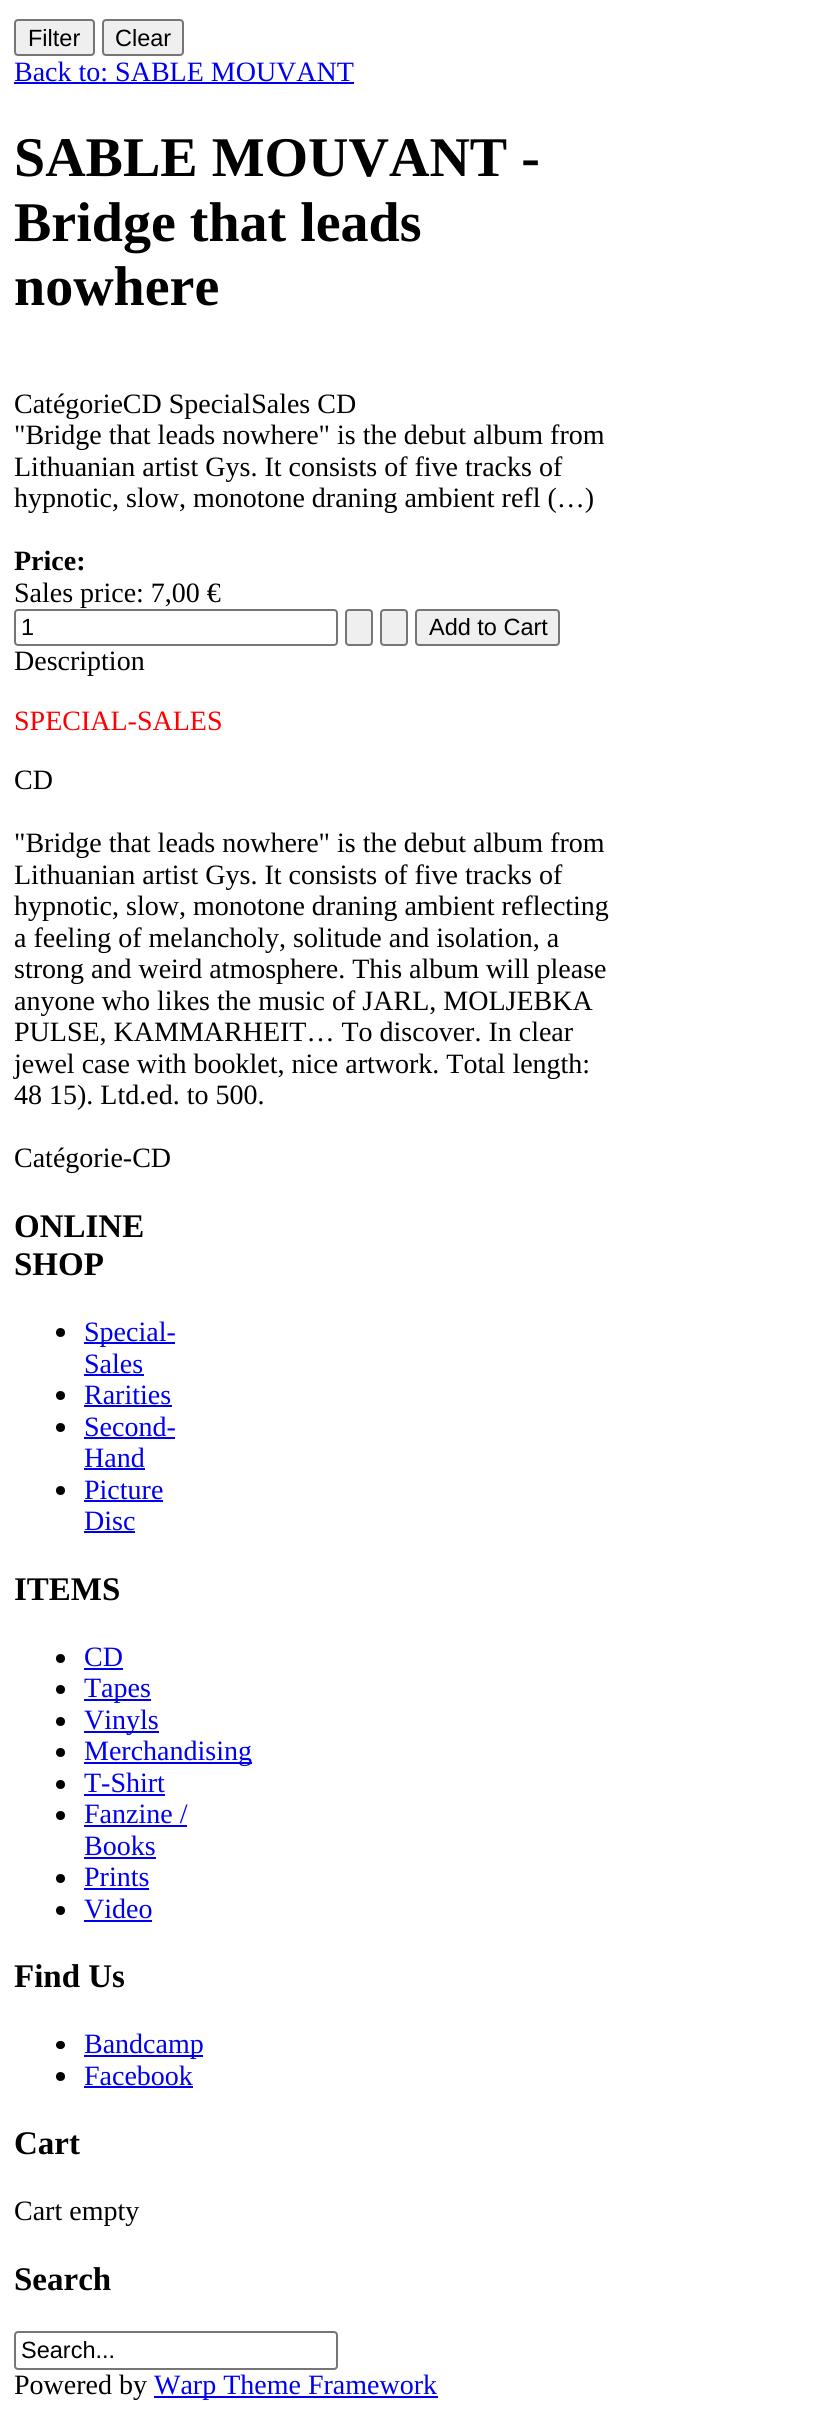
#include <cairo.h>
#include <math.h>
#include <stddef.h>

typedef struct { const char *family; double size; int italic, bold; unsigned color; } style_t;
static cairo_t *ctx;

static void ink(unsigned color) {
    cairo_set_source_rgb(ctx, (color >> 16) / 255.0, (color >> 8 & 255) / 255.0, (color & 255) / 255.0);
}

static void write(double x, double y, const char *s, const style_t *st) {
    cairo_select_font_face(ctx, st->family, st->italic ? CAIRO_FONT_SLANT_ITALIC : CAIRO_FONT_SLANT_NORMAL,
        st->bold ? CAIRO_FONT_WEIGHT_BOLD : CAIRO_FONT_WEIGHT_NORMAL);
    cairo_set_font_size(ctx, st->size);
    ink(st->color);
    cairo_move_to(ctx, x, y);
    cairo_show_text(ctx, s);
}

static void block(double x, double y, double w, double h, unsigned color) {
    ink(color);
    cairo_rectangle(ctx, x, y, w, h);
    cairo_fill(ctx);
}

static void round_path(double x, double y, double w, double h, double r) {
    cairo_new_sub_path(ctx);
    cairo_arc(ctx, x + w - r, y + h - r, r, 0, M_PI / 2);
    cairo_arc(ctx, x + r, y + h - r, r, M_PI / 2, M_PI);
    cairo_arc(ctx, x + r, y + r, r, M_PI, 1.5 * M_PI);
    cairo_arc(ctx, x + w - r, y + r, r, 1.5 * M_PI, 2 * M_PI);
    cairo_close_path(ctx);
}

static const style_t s1 = {"Liberation Sans", 23.5, 0, 0, 0x000000};
static const style_t s2 = {"Liberation Serif", 28, 0, 0, 0x0000ee};
static const style_t s3 = {"Liberation Serif", 56, 0, 1, 0x000000};
static const style_t s4 = {"Liberation Serif", 28, 0, 0, 0x000000};
static const style_t s5 = {"Liberation Serif", 28, 0, 1, 0x000000};
static const style_t s6 = {"Liberation Serif", 28, 0, 0, 0xff0000};
static const style_t s7 = {"Liberation Serif", 33, 0, 1, 0x000000};

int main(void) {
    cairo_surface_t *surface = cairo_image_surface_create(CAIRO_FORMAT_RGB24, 835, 2414);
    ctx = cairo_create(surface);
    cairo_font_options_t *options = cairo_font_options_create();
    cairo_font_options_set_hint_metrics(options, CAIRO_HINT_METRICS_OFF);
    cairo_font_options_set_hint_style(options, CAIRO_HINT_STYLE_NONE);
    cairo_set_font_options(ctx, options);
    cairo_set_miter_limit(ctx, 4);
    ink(0xffffff);
    cairo_paint(ctx);
    ink(0xefefef);
    round_path(15, 20, 79, 35, 3);
    cairo_fill_preserve(ctx);
    ink(0x767676);
    cairo_stroke(ctx);
    write(28, 46, "Filter", &s1);
    ink(0xefefef);
    round_path(103, 20, 80, 35, 3);
    cairo_fill_preserve(ctx);
    ink(0x767676);
    cairo_stroke(ctx);
    write(115, 46, "Clear", &s1);
    write(14, 81, "Back to: SABLE MOUVANT", &s2);
    block(14, 82, 340, 2, 0x0000ee);
    write(14, 176, "SABLE MOUVANT -", &s3);
    write(14, 241, "Bridge that leads", &s3);
    write(14, 305, "nowhere", &s3);
    write(14, 413, "CatégorieCD SpecialSales CD", &s4);
    write(14, 444, "\"Bridge that leads nowhere\" is the debut album from", &s4);
    write(14, 476, "Lithuanian artist Gys. It consists of five tracks of", &s4);
    write(14, 507, "hypnotic, slow, monotone draning ambient refl (…)", &s4);
    write(14, 570, "Price:", &s5);
    write(14, 602, "Sales price: 7,00 €", &s4);
    round_path(15, 610, 322, 35, 3);
    ink(0x767676);
    cairo_stroke(ctx);
    write(21, 635, "1", &s1);
    ink(0xefefef);
    round_path(346, 610, 26, 35, 3);
    cairo_fill_preserve(ctx);
    ink(0x767676);
    cairo_stroke(ctx);
    ink(0xefefef);
    round_path(381, 610, 26, 35, 3);
    cairo_fill_preserve(ctx);
    ink(0x767676);
    cairo_stroke(ctx);
    ink(0xefefef);
    round_path(416, 610, 143, 35, 3);
    cairo_fill_preserve(ctx);
    ink(0x767676);
    cairo_stroke(ctx);
    write(429, 635, "Add to Cart", &s1);
    write(14, 670, "Description", &s4);
    write(14, 730, "SPECIAL-SALES", &s6);
    write(14, 789, "CD", &s4);
    write(14, 852, "\"Bridge that leads nowhere\" is the debut album from", &s4);
    write(14, 884, "Lithuanian artist Gys. It consists of five tracks of", &s4);
    write(14, 915, "hypnotic, slow, monotone draning ambient reflecting", &s4);
    write(14, 947, "a feeling of melancholy, solitude and isolation, a", &s4);
    write(14, 978, "strong and weird atmosphere. This album will please", &s4);
    write(14, 1010, "anyone who likes the music of JARL, MOLJEBKA", &s4);
    write(14, 1041, "PULSE, KAMMARHEIT… To discover. In clear", &s4);
    write(14, 1073, "jewel case with booklet, nice artwork. Total length:", &s4);
    write(14, 1104, "48 15). Ltd.ed. to 500.", &s4);
    write(14, 1167, "Catégorie-CD", &s4);
    write(14, 1237, "ONLINE", &s7);
    write(14, 1275, "SHOP", &s7);
    cairo_new_path(ctx);
    cairo_arc(ctx, 60.5, 1332.5, 4.5, 0, 2 * M_PI);
    cairo_fill(ctx);
    block(84, 1342, 91, 2, 0x0000ee);
    write(84, 1341, "Special-", &s2);
    write(84, 1373, "Sales", &s2);
    block(84, 1374, 60, 2, 0x0000ee);
    ink(0x000000);
    cairo_new_path(ctx);
    cairo_arc(ctx, 60.5, 1395.5, 4.5, 0, 2 * M_PI);
    cairo_fill(ctx);
    write(84, 1404, "Rarities", &s2);
    block(84, 1405, 88, 2, 0x0000ee);
    ink(0x000000);
    cairo_new_path(ctx);
    cairo_arc(ctx, 60.5, 1427.5, 4.5, 0, 2 * M_PI);
    cairo_fill(ctx);
    write(84, 1436, "Second-", &s2);
    block(84, 1437, 91, 2, 0x0000ee);
    write(84, 1467, "Hand", &s2);
    block(84, 1468, 61, 2, 0x0000ee);
    ink(0x000000);
    cairo_new_path(ctx);
    cairo_arc(ctx, 60.5, 1490.5, 4.5, 0, 2 * M_PI);
    cairo_fill(ctx);
    write(84, 1499, "Picture", &s2);
    block(84, 1500, 79, 2, 0x0000ee);
    write(84, 1530, "Disc", &s2);
    block(84, 1531, 51, 2, 0x0000ee);
    write(14, 1600, "ITEMS", &s7);
    cairo_new_path(ctx);
    cairo_arc(ctx, 60.5, 1658.5, 4.5, 0, 2 * M_PI);
    cairo_fill(ctx);
    write(84, 1666, "CD", &s2);
    block(84, 1668, 39, 2, 0x0000ee);
    ink(0x000000);
    cairo_new_path(ctx);
    cairo_arc(ctx, 60.5, 1689.5, 4.5, 0, 2 * M_PI);
    cairo_fill(ctx);
    block(84, 1699, 67, 2, 0x0000ee);
    write(84, 1697, "Tapes", &s2);
    ink(0x000000);
    cairo_new_path(ctx);
    cairo_arc(ctx, 60.5, 1721.5, 4.5, 0, 2 * M_PI);
    cairo_fill(ctx);
    block(84, 1731, 75, 2, 0x0000ee);
    write(84, 1729, "Vinyls", &s2);
    ink(0x000000);
    cairo_new_path(ctx);
    cairo_arc(ctx, 60.5, 1752.5, 4.5, 0, 2 * M_PI);
    cairo_fill(ctx);
    block(84, 1762, 168, 2, 0x0000ee);
    write(84, 1760, "Merchandising", &s2);
    ink(0x000000);
    cairo_new_path(ctx);
    cairo_arc(ctx, 60.5, 1784.5, 4.5, 0, 2 * M_PI);
    cairo_fill(ctx);
    write(84, 1792, "T-Shirt", &s2);
    block(84, 1794, 81, 2, 0x0000ee);
    ink(0x000000);
    cairo_new_path(ctx);
    cairo_arc(ctx, 60.5, 1815.5, 4.5, 0, 2 * M_PI);
    cairo_fill(ctx);
    write(84, 1823, "Fanzine /", &s2);
    block(84, 1825, 103, 2, 0x0000ee);
    write(84, 1855, "Books", &s2);
    block(84, 1857, 72, 2, 0x0000ee);
    ink(0x000000);
    cairo_new_path(ctx);
    cairo_arc(ctx, 60.5, 1878.5, 4.5, 0, 2 * M_PI);
    cairo_fill(ctx);
    write(84, 1886, "Prints", &s2);
    block(84, 1888, 65, 2, 0x0000ee);
    ink(0x000000);
    cairo_new_path(ctx);
    cairo_arc(ctx, 60.5, 1910.5, 4.5, 0, 2 * M_PI);
    cairo_fill(ctx);
    write(84, 1918, "Video", &s2);
    block(84, 1920, 68, 2, 0x0000ee);
    write(14, 1987, "Find Us", &s7);
    round_path(56, 2041, 9, 8, 4);
    cairo_fill(ctx);
    block(84, 2055, 119, 2, 0x0000ee);
    write(84, 2053, "Bandcamp", &s2);
    ink(0x000000);
    cairo_new_path(ctx);
    cairo_arc(ctx, 60.5, 2076.5, 4.5, 0, 2 * M_PI);
    cairo_fill(ctx);
    write(84, 2085, "Facebook", &s2);
    block(84, 2086, 109, 2, 0x0000ee);
    write(14, 2154, "Cart", &s7);
    write(14, 2220, "Cart empty", &s4);
    write(14, 2290, "Search", &s7);
    round_path(15, 2332, 322, 37, 3);
    ink(0x767676);
    cairo_stroke(ctx);
    write(21, 2358, "Search...", &s1);
    write(14, 2394, "Powered by", &s4);
    block(154, 2396, 284, 2, 0x0000ee);
    write(154, 2394, "Warp Theme Framework", &s2);
    cairo_surface_write_to_png(surface, "screenshot.png");
    cairo_font_options_destroy(options);
    cairo_destroy(ctx);
    cairo_surface_destroy(surface);
    return 0;
}
